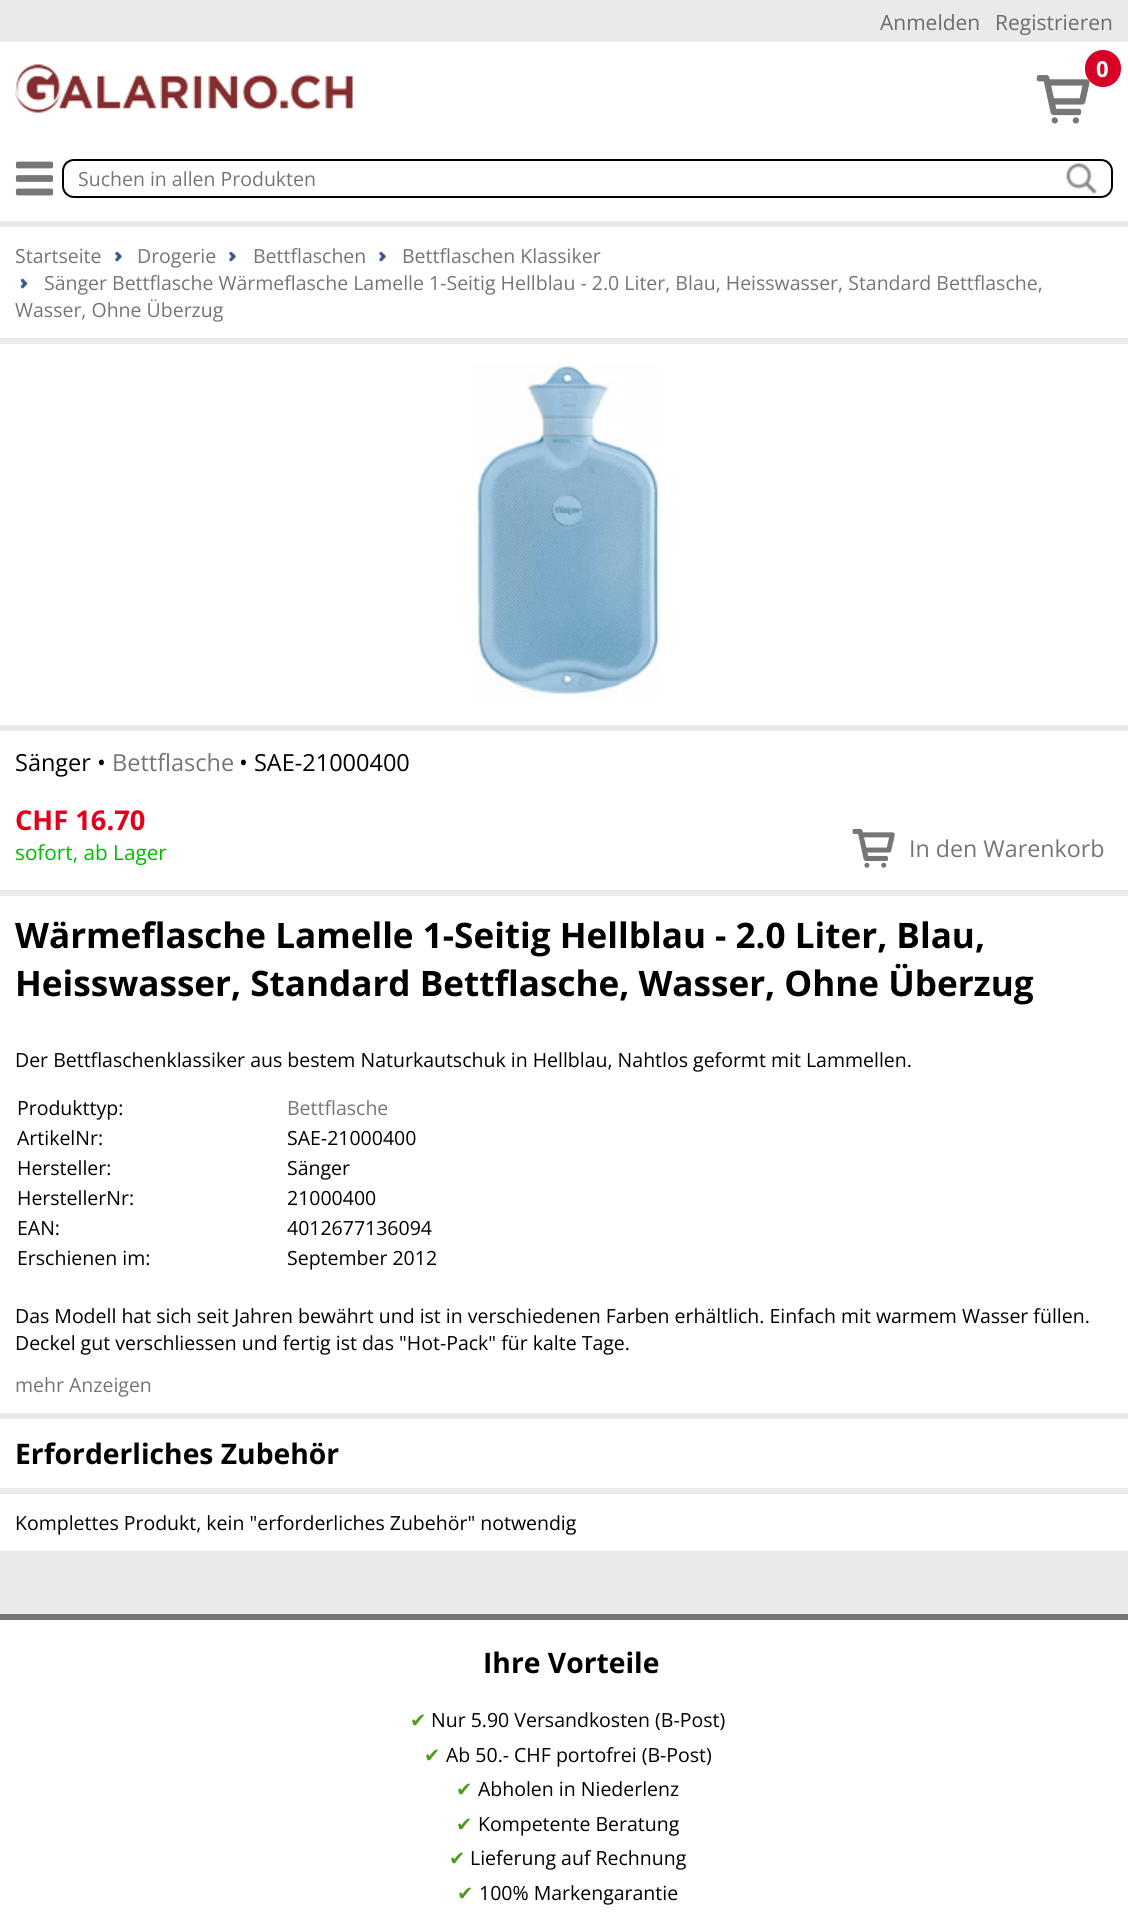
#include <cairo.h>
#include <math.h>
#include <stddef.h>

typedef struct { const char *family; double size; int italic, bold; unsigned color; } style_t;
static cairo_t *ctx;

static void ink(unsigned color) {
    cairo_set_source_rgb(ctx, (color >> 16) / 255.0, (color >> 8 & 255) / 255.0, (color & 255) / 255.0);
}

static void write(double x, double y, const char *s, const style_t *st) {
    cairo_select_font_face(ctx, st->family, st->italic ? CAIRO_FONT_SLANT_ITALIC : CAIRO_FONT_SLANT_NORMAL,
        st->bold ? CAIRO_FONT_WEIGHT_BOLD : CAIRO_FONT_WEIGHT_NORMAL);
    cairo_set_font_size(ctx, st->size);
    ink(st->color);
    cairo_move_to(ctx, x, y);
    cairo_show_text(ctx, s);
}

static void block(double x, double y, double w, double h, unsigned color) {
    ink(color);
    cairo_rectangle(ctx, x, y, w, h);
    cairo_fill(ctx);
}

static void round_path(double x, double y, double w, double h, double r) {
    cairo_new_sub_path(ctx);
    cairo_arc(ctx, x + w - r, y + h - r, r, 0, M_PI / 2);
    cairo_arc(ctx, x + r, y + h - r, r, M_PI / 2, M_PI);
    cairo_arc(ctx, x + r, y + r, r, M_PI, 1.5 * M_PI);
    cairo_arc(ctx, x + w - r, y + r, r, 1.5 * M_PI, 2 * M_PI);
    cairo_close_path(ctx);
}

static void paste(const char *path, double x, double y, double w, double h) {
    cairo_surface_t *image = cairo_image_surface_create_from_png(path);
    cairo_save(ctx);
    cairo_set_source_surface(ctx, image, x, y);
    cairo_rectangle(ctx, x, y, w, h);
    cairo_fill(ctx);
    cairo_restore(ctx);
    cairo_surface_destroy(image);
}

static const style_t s1 = {"Open Sans", 21, 0, 0, 0x6c6c6c};
static const style_t s2 = {"Open Sans", 22, 0, 1, 0xffffff};
static const style_t s3 = {"Open Sans", 19.5, 0, 0, 0x757575};
static const style_t s4 = {"Open Sans", 23.5, 0, 0, 0x000000};
static const style_t s5 = {"Open Sans", 23.5, 0, 0, 0x757575};
static const style_t s6 = {"Open Sans", 27.25, 0, 1, 0xe2001a};
static const style_t s7 = {"Open Sans", 20.75, 0, 0, 0x00bb00};
static const style_t s8 = {"Open Sans", 23.25, 0, 0, 0x757575};
static const style_t s9 = {"Open Sans", 35.1, 0, 1, 0x000000};
static const style_t s10 = {"Open Sans", 19.5, 0, 0, 0x000000};
static const style_t s11 = {"Open Sans", 28.25, 0, 1, 0x000000};
static const style_t s12 = {"DejaVu Sans", 19.5, 0, 0, 0x4c9d1c};

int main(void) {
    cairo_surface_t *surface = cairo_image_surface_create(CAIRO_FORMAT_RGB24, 1128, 1922);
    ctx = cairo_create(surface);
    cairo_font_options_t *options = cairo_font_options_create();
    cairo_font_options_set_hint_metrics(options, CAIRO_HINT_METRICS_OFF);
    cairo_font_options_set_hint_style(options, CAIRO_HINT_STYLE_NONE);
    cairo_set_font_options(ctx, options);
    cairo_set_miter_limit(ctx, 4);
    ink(0xeaeaea);
    cairo_paint(ctx);
    write(880, 30, "Anmelden", &s1);
    write(995, 30, "Registrieren", &s1);
    block(0, 42, 1128, 179, 0xffffff);
    paste("pic1.png", 15, 64, 338, 49);
    paste("pic2.png", 1036, 75, 54, 49);
    ink(0xd70026);
    round_path(1085, 50, 36, 37, 18);
    cairo_fill(ctx);
    write(1096, 77, "0", &s2);
    paste("pic3.png", 15, 161, 39, 35);
    round_path(63, 160, 1049, 37, 11);
    ink(0x000000);
    cairo_stroke(ctx);
    write(78, 186, "Suchen in allen Produkten", &s3);
    paste("pic4.png", 1066, 163, 31, 31);
    block(0, 227, 1128, 111, 0xffffff);
    write(15, 263, "Startseite", &s3);
    paste("pic5.png", 115, 251, 7, 11);
    write(137, 263, "Drogerie", &s3);
    paste("pic5.png", 229, 251, 7, 11);
    write(253, 263, "Bettflaschen", &s3);
    paste("pic6.png", 379, 251, 7, 11);
    write(402, 263, "Bettflaschen Klassiker", &s3);
    paste("pic7.png", 20, 278, 8, 11);
    write(44, 290, "Sänger Bettflasche Wärmeflasche Lamelle 1-Seitig Hellblau - 2.0 Liter, Blau, Heisswasser, Standard Bettflasche,", &s3);
    write(15, 317, "Wasser, Ohne Überzug", &s3);
    block(0, 344, 1128, 381, 0xffffff);
    paste("pic8.png", 470, 363, 190, 336);
    block(0, 731, 1128, 159, 0xffffff);
    write(15, 771, "Sänger •", &s4);
    write(112, 771, "Bettflasche", &s5);
    write(239, 771, "• SAE-21000400", &s4);
    write(15, 830, "CHF 16.70", &s6);
    write(15, 860, "sofort, ab Lager", &s7);
    paste("pic9.png", 852, 828, 43, 40);
    write(909, 857, "In den Warenkorb", &s8);
    block(0, 896, 1128, 517, 0xffffff);
    write(15, 948, "Wärmeflasche Lamelle 1-Seitig Hellblau - 2.0 Liter, Blau,", &s9);
    write(15, 996, "Heisswasser, Standard Bettflasche, Wasser, Ohne Überzug", &s9);
    write(15, 1067, "Der Bettflaschenklassiker aus bestem Naturkautschuk in Hellblau, Nahtlos geformt mit Lammellen.", &s10);
    write(17, 1115, "Produkttyp:", &s10);
    write(287, 1115, "Bettflasche", &s3);
    write(17, 1145, "ArtikelNr:", &s10);
    write(287, 1145, "SAE-21000400", &s10);
    write(17, 1175, "Hersteller:", &s10);
    write(287, 1175, "Sänger", &s10);
    write(17, 1205, "HerstellerNr:", &s10);
    write(287, 1205, "21000400", &s10);
    write(17, 1235, "EAN:", &s10);
    write(287, 1235, "4012677136094", &s10);
    write(17, 1265, "Erschienen im:", &s10);
    write(287, 1265, "September 2012", &s10);
    write(15, 1323, "Das Modell hat sich seit Jahren bewährt und ist in verschiedenen Farben erhältlich. Einfach mit warmem Wasser füllen.", &s10);
    write(15, 1350, "Deckel gut verschliessen und fertig ist das \"Hot-Pack\" für kalte Tage.", &s10);
    write(15, 1392, "mehr Anzeigen", &s3);
    block(0, 1419, 1128, 69, 0xffffff);
    write(15, 1464, "Erforderliches Zubehör", &s11);
    block(0, 1494, 1128, 57, 0xffffff);
    write(15, 1530, "Komplettes Produkt, kein \"erforderliches Zubehör\" notwendig", &s10);
    block(0, 1614, 1128, 6, 0x777676);
    block(0, 1620, 1128, 302, 0xffffff);
    write(483, 1673, "Ihre Vorteile", &s11);
    write(410, 1727, "✔", &s12);
    write(431, 1727, "Nur 5.90 Versandkosten (B-Post)", &s10);
    write(424, 1762, "✔", &s12);
    write(446, 1762, "Ab 50.- CHF portofrei (B-Post)", &s10);
    write(456, 1796, "✔", &s12);
    write(478, 1796, "Abholen in Niederlenz", &s10);
    write(456, 1831, "✔", &s12);
    write(478, 1831, "Kompetente Beratung", &s10);
    write(449, 1865, "✔", &s12);
    write(470, 1865, "Lieferung auf Rechnung", &s10);
    write(457, 1900, "✔", &s12);
    write(479, 1900, "100% Markengarantie", &s10);
    cairo_surface_write_to_png(surface, "screenshot.png");
    cairo_font_options_destroy(options);
    cairo_destroy(ctx);
    cairo_surface_destroy(surface);
    return 0;
}
